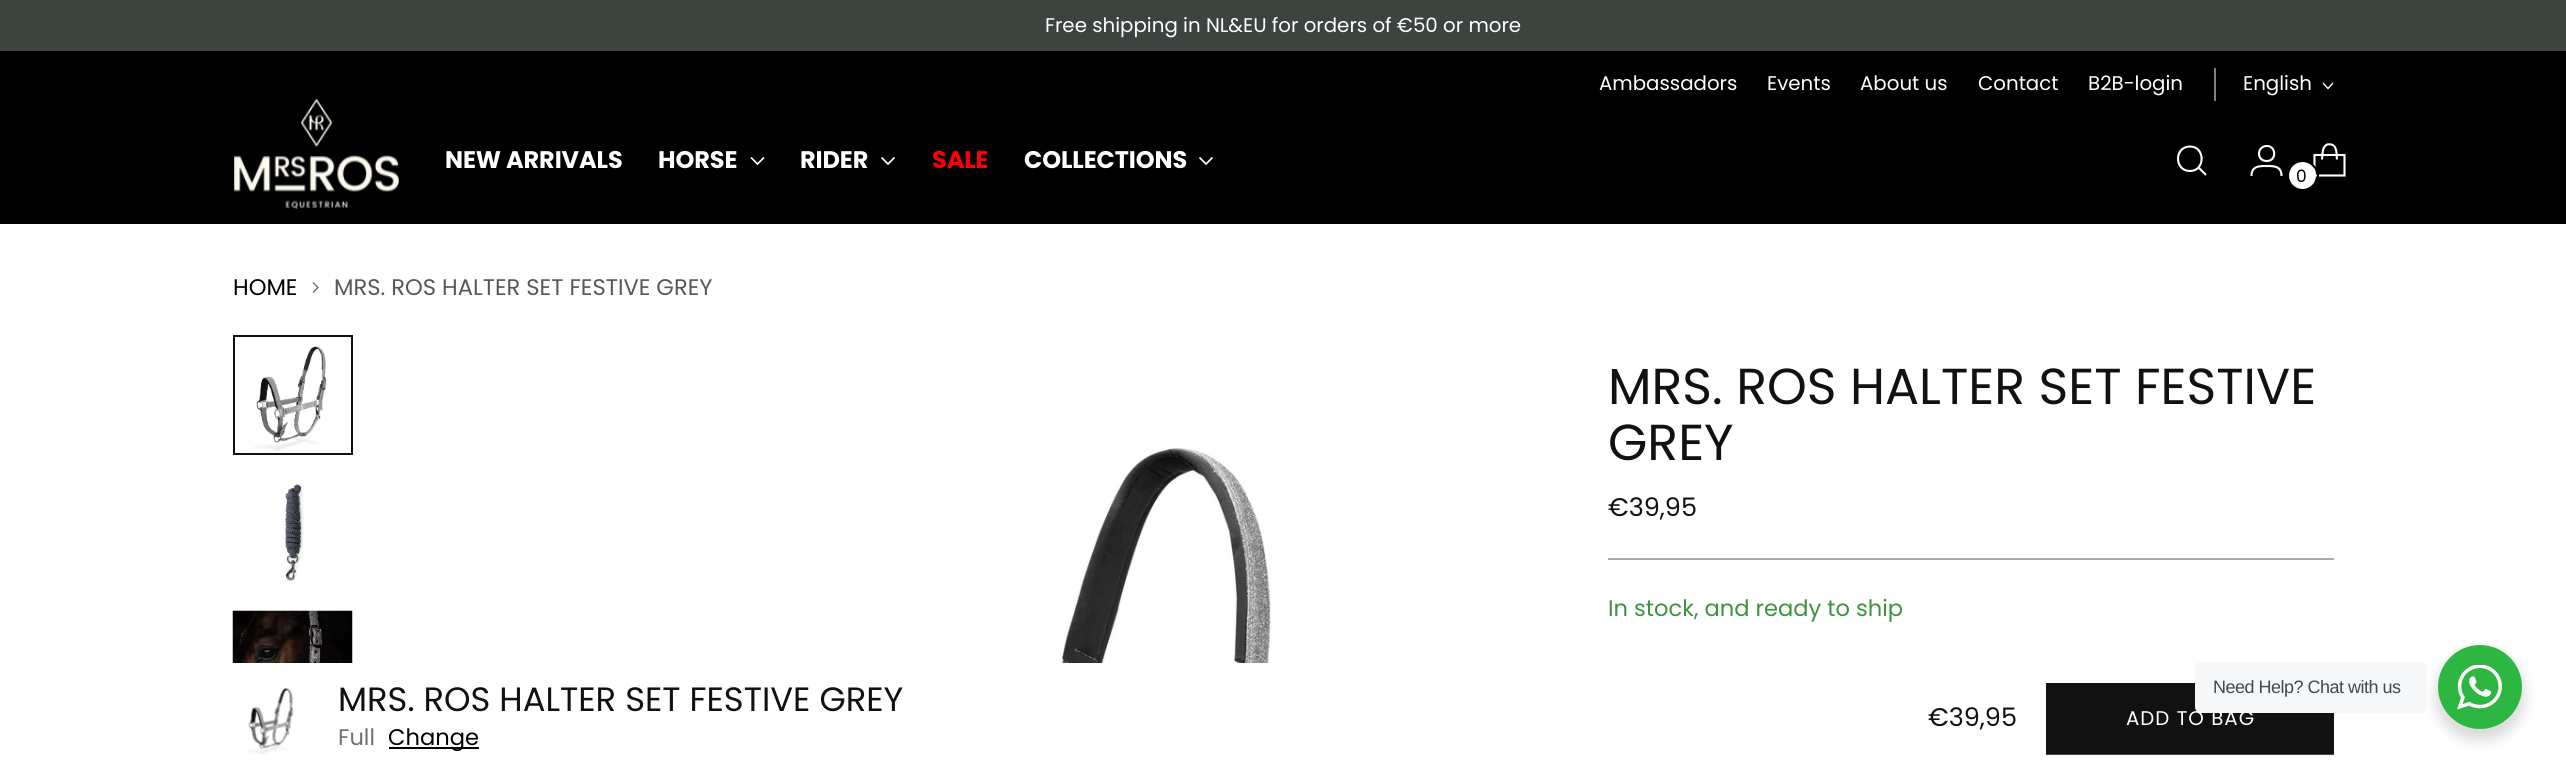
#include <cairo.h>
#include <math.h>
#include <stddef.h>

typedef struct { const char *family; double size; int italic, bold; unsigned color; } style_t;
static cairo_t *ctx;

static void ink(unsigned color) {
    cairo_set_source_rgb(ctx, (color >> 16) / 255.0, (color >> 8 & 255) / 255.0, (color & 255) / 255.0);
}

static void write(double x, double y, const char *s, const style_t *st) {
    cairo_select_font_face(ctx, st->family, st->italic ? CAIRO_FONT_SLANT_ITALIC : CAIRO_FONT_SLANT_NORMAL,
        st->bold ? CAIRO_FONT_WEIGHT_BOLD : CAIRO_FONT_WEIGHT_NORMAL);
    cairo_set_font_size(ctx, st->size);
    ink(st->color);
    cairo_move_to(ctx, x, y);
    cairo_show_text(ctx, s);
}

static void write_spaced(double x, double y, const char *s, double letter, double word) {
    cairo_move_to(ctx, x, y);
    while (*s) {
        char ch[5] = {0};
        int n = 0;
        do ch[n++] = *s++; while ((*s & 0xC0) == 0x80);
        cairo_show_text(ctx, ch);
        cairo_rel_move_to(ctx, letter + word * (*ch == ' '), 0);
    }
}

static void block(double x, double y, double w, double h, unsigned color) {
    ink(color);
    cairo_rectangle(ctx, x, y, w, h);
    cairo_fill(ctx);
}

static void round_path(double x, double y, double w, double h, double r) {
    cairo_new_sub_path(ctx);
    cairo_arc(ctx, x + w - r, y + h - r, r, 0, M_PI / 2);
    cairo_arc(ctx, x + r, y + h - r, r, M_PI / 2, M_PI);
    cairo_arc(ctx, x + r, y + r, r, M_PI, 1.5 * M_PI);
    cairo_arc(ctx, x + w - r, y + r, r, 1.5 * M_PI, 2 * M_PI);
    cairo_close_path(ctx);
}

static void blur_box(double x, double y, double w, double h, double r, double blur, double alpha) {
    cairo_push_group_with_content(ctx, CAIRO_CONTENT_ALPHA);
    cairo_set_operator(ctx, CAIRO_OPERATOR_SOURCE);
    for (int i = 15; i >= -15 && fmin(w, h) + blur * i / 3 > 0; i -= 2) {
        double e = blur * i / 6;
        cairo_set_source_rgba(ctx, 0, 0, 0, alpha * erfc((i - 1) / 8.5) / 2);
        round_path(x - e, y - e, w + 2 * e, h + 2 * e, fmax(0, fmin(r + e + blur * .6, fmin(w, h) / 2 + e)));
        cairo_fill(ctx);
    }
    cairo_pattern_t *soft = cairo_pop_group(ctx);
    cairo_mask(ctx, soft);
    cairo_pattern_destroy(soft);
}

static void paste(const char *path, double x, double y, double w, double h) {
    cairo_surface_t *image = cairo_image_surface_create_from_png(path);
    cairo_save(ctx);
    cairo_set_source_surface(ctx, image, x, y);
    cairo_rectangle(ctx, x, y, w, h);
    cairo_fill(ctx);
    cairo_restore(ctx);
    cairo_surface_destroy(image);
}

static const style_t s1 = {"Poppins", 19.8, 0, 0, 0xffffff};
static const style_t s2 = {"Poppins", 17, 0, 0, 0x000000};
static const style_t s3 = {"Poppins", 22.6, 0, 0, 0x000000};
static const style_t s4 = {"Poppins", 22.6, 0, 0, 0x585858};
static const style_t s5 = {"Poppins", 50.6, 0, 0, 0x111111};
static const style_t s6 = {"Poppins", 25.5, 0, 0, 0x111111};
static const style_t s7 = {"Poppins", 22.6, 0, 0, 0x3c9342};
static const style_t s8 = {"Poppins", 33.75, 0, 0, 0x111111};
static const style_t s9 = {"Poppins", 22.6, 0, 0, 0x707070};

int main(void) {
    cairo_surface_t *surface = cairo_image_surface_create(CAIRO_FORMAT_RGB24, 2566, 774);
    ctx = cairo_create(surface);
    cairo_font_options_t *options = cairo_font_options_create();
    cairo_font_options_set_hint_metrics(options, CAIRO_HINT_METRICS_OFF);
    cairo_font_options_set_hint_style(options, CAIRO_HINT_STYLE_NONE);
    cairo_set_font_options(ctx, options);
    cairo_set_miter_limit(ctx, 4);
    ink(0xffffff);
    cairo_paint(ctx);
    block(0, 0, 2566, 51, 0x3b443e);
    write(1045, 32, "Free shipping in NL&EU for orders of €50 or more", &s1);
    block(0, 51, 2566, 173, 0x000000);
    write(1599, 90, "Ambassadors", &s1);
    write(1767, 90, "Events", &s1);
    write(1860, 90, "About us", &s1);
    write(1978, 90, "Contact", &s1);
    write(2088, 90, "B2B-login", &s1);
    block(2214, 68, 2, 33, 0x808080);
    write(2243, 90, "English", &s1);
    cairo_new_path(ctx);
    cairo_move_to(ctx, 2323, 83);
    cairo_line_to(ctx, 2328, 88.5);
    cairo_line_to(ctx, 2333, 83);
    cairo_set_line_width(ctx, 1.4);
    cairo_stroke(ctx);
    paste("pic1.png", 234, 99, 165, 110);
    cairo_select_font_face(ctx, "Poppins", CAIRO_FONT_SLANT_NORMAL, CAIRO_FONT_WEIGHT_BOLD);
    cairo_set_font_size(ctx, 24);
    write_spaced(445, 168, "NEW ARRIVALS", -0.1, 0);
    write_spaced(658, 168, "HORSE", -0.1, 0);
    cairo_new_path(ctx);
    cairo_move_to(ctx, 751, 157.5);
    cairo_line_to(ctx, 757.5, 164);
    cairo_line_to(ctx, 764, 157.5);
    cairo_set_line_width(ctx, 1.7);
    cairo_stroke(ctx);
    write_spaced(800, 168, "RIDER", -0.1, 0);
    cairo_new_path(ctx);
    cairo_move_to(ctx, 881.5, 157.5);
    cairo_line_to(ctx, 888, 164);
    cairo_line_to(ctx, 894.5, 157.5);
    cairo_stroke(ctx);
    ink(0xff0000);
    write_spaced(932, 168, "SALE", -0.1, 0);
    ink(0xffffff);
    write_spaced(1024, 168, "COLLECTIONS", -0.1, 0);
    cairo_new_path(ctx);
    cairo_move_to(ctx, 1199.5, 157.5);
    cairo_line_to(ctx, 1206, 164);
    cairo_line_to(ctx, 1212.5, 157.5);
    cairo_stroke(ctx);
    cairo_new_path(ctx);
    cairo_move_to(ctx, 2190, 171);
    cairo_curve_to(ctx, 2205.5, 171, 2205.5, 146.5, 2190, 146.5);
    cairo_curve_to(ctx, 2174, 146.5, 2174, 171, 2190, 171);
    cairo_close_path(ctx);
    cairo_set_line_width(ctx, 2.1);
    cairo_set_line_cap(ctx, CAIRO_LINE_CAP_ROUND);
    cairo_stroke(ctx);
    cairo_new_path(ctx);
    cairo_move_to(ctx, 2198.5, 167.5);
    cairo_line_to(ctx, 2206, 175);
    cairo_set_line_cap(ctx, CAIRO_LINE_CAP_BUTT);
    cairo_stroke(ctx);
    cairo_new_path(ctx);
    cairo_move_to(ctx, 2266.5, 161);
    cairo_curve_to(ctx, 2277, 161.5, 2276.5, 145.5, 2266.5, 146);
    cairo_curve_to(ctx, 2256.5, 146.5, 2256.5, 161, 2266.5, 161);
    cairo_close_path(ctx);
    cairo_move_to(ctx, 2251.5, 176);
    cairo_curve_to(ctx, 2251.5, 166, 2259, 166, 2266.5, 166);
    cairo_curve_to(ctx, 2274, 166, 2281.5, 166, 2281.5, 176);
    cairo_stroke(ctx);
    cairo_new_path(ctx);
    cairo_move_to(ctx, 2337, 159.5);
    cairo_curve_to(ctx, 2336.5, 156, 2337, 152, 2335.5, 148.5);
    cairo_curve_to(ctx, 2335, 146.5, 2333, 144.5, 2331, 144.5);
    cairo_curve_to(ctx, 2322, 142.5, 2322.5, 154, 2322, 159.5);
    cairo_set_line_join(ctx, CAIRO_LINE_JOIN_BEVEL);
    cairo_stroke(ctx);
    cairo_new_path(ctx);
    cairo_move_to(ctx, 2344.5, 175.5);
    cairo_line_to(ctx, 2344.5, 155);
    cairo_line_to(ctx, 2314.5, 155);
    cairo_line_to(ctx, 2314.5, 175.5);
    cairo_close_path(ctx);
    cairo_set_line_join(ctx, CAIRO_LINE_JOIN_MITER);
    cairo_stroke(ctx);
    cairo_arc(ctx, 2303.5, 176.5, 14.5, 0, 2 * M_PI);
    ink(0x000000);
    cairo_set_line_width(ctx, 2);
    cairo_stroke(ctx);
    ink(0xffffff);
    cairo_arc(ctx, 2302.5, 175.5, 13.5, 0, 2 * M_PI);
    cairo_fill(ctx);
    write(2296, 182, "0", &s2);
    write(233, 295, "HOME", &s3);
    cairo_new_path(ctx);
    cairo_move_to(ctx, 313, 292.5);
    cairo_line_to(ctx, 318, 287.5);
    cairo_line_to(ctx, 313, 282.5);
    ink(0x707070);
    cairo_set_line_width(ctx, 1.4);
    cairo_stroke(ctx);
    write(334, 295, "MRS. ROS HALTER SET FESTIVE GREY", &s4);
    paste("pic2.png", 254, 346, 73, 106);
    cairo_rectangle(ctx, 234, 336, 118, 118);
    ink(0x111111);
    cairo_set_line_width(ctx, 2);
    cairo_stroke(ctx);
    paste("pic3.png", 285, 483, 19, 98);
    paste("pic4.png", 232, 610, 121, 53);
    paste("pic5.png", 669, 448, 611, 215);
    block(1608, 558, 726, 2, 0xaaaaaa);
    write(1608, 404, "MRS. ROS HALTER SET FESTIVE", &s5);
    write(1608, 460, "GREY", &s5);
    write(1608, 516, "€39,95", &s6);
    write(1608, 616, "In stock, and ready to ship", &s7);
    paste("pic6.png", 247, 687, 47, 68);
    write(338, 711, "MRS. ROS HALTER SET FESTIVE GREY", &s8);
    write(338, 745, "Full", &s9);
    block(389, 747, 90, 2, 0x000000);
    write(388, 745, "Change", &s3);
    write(1928, 726, "€39,95", &s6);
    cairo_save(ctx);
    cairo_rectangle(ctx, 2046, 683, 288, 72);
    cairo_clip(ctx);
    cairo_new_path(ctx);
    cairo_move_to(ctx, 1983, 682);
    cairo_line_to(ctx, 2355, 682);
    cairo_line_to(ctx, 2397, 754);
    cairo_line_to(ctx, 2024, 754);
    cairo_close_path(ctx);
    cairo_fill(ctx);
    cairo_restore(ctx);
    cairo_set_font_size(ctx, 19.8);
    ink(0xffffff);
    write_spaced(2126, 725, "ADD TO BAG", 1, 0);
    block(2046, 754, 288, 1, 0x444444);
    ink(0x000000);
    blur_box(2435, 651, 90, 90, 45, 6, 0.14);
    ink(0xf5f7f9);
    round_path(2195, 662, 232, 51, 6);
    cairo_fill(ctx);
    cairo_select_font_face(ctx, "Liberation Sans", CAIRO_FONT_SLANT_NORMAL, CAIRO_FONT_WEIGHT_NORMAL);
    cairo_set_font_size(ctx, 18);
    ink(0x43474e);
    write_spaced(2213, 693, "Need Help? Chat with us", -0.5, 0);
    ink(0x2db742);
    cairo_new_path(ctx);
    cairo_arc(ctx, 2480, 687, 42, 0, 2 * M_PI);
    cairo_fill(ctx);
    paste("pic7.png", 2457, 665, 45, 45);
    cairo_surface_write_to_png(surface, "screenshot.png");
    cairo_font_options_destroy(options);
    cairo_destroy(ctx);
    cairo_surface_destroy(surface);
    return 0;
}
